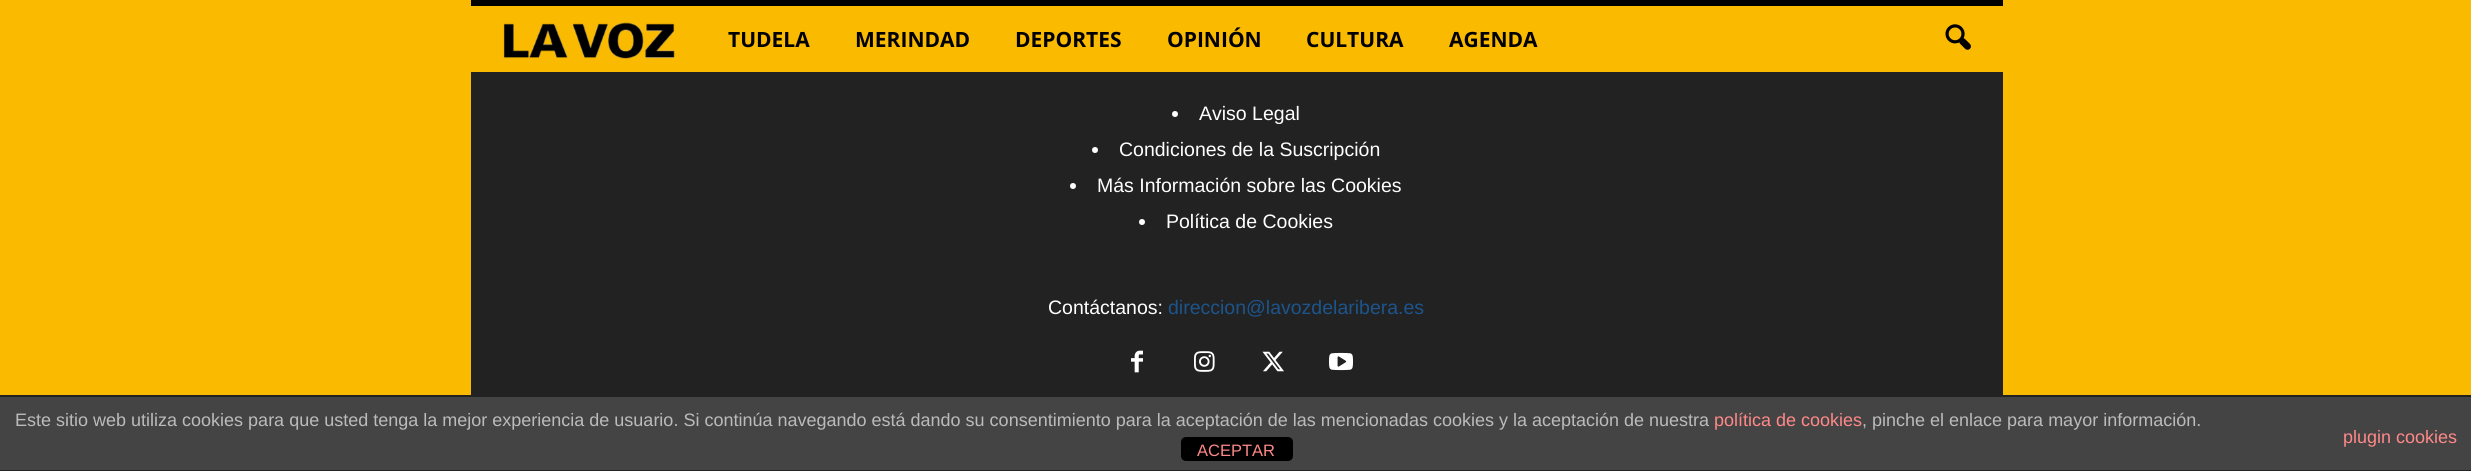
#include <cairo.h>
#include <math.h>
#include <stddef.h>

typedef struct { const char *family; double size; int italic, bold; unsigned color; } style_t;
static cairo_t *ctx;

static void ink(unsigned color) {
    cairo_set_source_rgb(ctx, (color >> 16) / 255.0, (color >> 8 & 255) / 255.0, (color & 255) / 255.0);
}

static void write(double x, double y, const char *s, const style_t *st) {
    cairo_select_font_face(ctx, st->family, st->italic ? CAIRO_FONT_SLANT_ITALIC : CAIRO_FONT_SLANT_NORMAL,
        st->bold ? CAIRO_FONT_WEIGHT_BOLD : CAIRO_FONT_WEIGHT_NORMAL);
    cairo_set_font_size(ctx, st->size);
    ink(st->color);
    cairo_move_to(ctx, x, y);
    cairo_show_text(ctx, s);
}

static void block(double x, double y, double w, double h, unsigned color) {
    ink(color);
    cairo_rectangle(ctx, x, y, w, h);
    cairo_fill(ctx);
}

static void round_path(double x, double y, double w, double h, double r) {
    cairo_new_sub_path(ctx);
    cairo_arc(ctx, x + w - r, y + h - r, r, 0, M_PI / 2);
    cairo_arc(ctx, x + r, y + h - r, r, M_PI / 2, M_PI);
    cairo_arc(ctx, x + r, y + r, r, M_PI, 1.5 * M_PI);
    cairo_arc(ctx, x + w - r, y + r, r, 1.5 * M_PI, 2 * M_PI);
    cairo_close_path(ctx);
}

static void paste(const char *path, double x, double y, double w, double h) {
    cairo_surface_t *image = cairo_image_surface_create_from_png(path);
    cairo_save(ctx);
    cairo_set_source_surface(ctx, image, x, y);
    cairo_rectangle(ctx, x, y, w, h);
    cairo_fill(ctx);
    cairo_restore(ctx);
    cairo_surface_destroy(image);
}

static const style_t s1 = {"Open Sans", 21, 0, 1, 0x000000};
static const style_t s2 = {"Liberation Sans", 19.5, 0, 0, 0xffffff};
static const style_t s3 = {"Liberation Sans", 19.5, 0, 0, 0x1c548c};
static const style_t s4 = {"Liberation Sans", 18, 0, 0, 0xbbbbbb};
static const style_t s5 = {"Liberation Sans", 18, 0, 0, 0xff8888};
static const style_t s6 = {"Liberation Sans", 16.5, 0, 0, 0xff8888};

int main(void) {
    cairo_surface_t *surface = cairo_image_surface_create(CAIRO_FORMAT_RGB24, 2471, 471);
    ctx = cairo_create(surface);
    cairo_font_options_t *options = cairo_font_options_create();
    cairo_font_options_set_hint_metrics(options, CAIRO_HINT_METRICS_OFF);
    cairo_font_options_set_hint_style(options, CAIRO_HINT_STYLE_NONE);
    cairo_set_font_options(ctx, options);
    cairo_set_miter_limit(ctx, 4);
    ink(0xfaba00);
    cairo_paint(ctx);
    block(471, 0, 1532, 6, 0x000000);
    paste("pic1.png", 503, 22, 172, 37);
    write(728, 47, "TUDELA", &s1);
    write(855, 47, "MERINDAD", &s1);
    write(1015, 47, "DEPORTES", &s1);
    write(1167, 47, "OPINIÓN", &s1);
    write(1306, 47, "CULTURA", &s1);
    write(1449, 47, "AGENDA", &s1);
    paste("pic2.png", 1945, 24, 26, 26);
    block(471, 72, 1532, 323, 0x222222);
    ink(0xffffff);
    cairo_arc(ctx, 1175, 114, 3, 0, 2 * M_PI);
    cairo_fill(ctx);
    write(1199, 120, "Aviso Legal", &s2);
    cairo_new_path(ctx);
    cairo_arc(ctx, 1095, 150, 3, 0, 2 * M_PI);
    cairo_fill(ctx);
    write(1119, 156, "Condiciones de la Suscripción", &s2);
    cairo_new_path(ctx);
    cairo_arc(ctx, 1073, 186, 3, 0, 2 * M_PI);
    cairo_fill(ctx);
    write(1097, 192, "Más Información sobre las Cookies", &s2);
    cairo_new_path(ctx);
    cairo_arc(ctx, 1142, 222, 3, 0, 2 * M_PI);
    cairo_fill(ctx);
    write(1166, 228, "Política de Cookies", &s2);
    write(1048, 314, "Contáctanos:", &s2);
    write(1168, 314, "direccion@lavozdelaribera.es", &s3);
    paste("pic3.png", 1131, 350, 12, 23);
    paste("pic4.png", 1194, 351, 21, 21);
    paste("pic5.png", 1262, 351, 22, 21);
    paste("pic6.png", 1329, 352, 24, 19);
    block(0, 397, 2471, 73, 0x444444);
    block(0, 395, 2471, 2, 0x222222);
    block(0, 470, 2471, 1, 0x222222);
    write(15, 426, "Este sitio web utiliza cookies para que usted tenga la mejor experiencia de usuario. Si continúa navegando está dando su consentimiento para la aceptación de las mencionadas cookies y la aceptación de nuestra", &s4);
    write(1714, 426, "política de cookies", &s5);
    write(1862, 426, ", pinche el enlace para mayor información.", &s4);
    write(2343, 443, "plugin cookies", &s5);
    ink(0x000000);
    round_path(1181, 437, 112, 24, 5);
    cairo_fill(ctx);
    write(1197, 456, "ACEPTAR", &s6);
    cairo_surface_write_to_png(surface, "screenshot.png");
    cairo_font_options_destroy(options);
    cairo_destroy(ctx);
    cairo_surface_destroy(surface);
    return 0;
}
